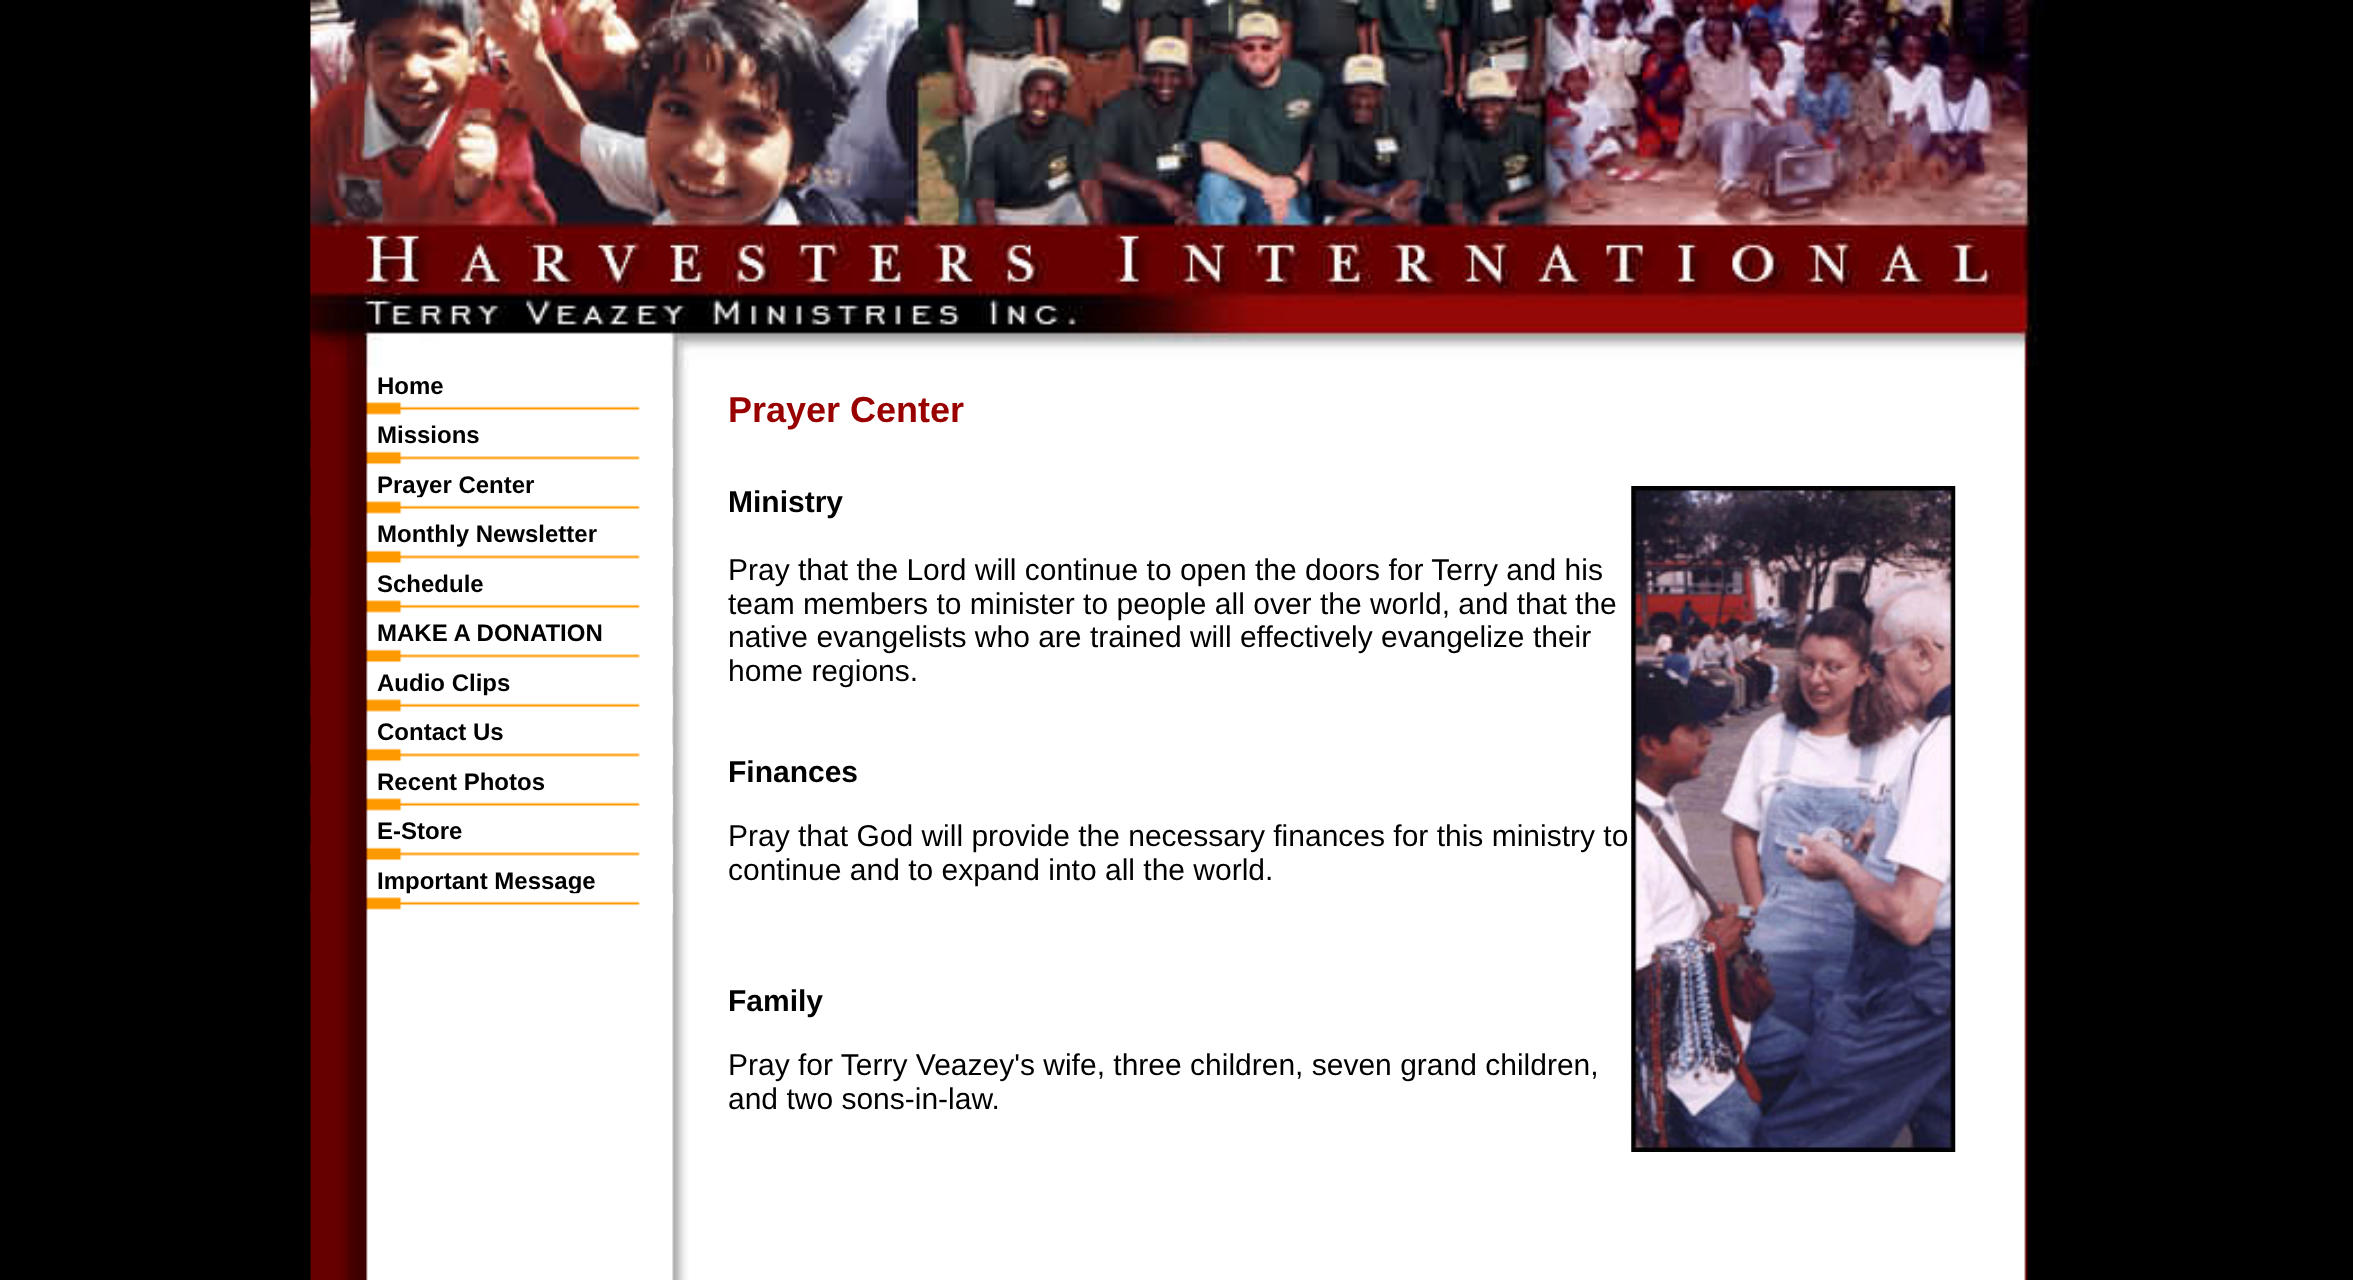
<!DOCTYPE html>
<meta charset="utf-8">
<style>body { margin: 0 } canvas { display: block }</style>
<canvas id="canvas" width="2353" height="1280"></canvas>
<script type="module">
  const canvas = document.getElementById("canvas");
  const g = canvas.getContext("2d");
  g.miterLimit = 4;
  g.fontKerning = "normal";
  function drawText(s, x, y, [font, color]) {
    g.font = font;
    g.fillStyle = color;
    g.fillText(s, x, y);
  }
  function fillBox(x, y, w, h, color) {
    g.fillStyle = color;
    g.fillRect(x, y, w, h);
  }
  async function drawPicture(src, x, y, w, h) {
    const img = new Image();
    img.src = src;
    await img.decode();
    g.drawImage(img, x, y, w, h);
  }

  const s1 = ["bold 24px Liberation Sans", "#000000"];
  const s2 = ["bold 36px Liberation Sans", "#990000"];
  const s3 = ["bold 30px Liberation Sans", "#000000"];
  const s4 = ["30px Liberation Sans", "#000000"];

  fillBox(0, 0, 2353, 1280, "#000000");
  await drawPicture("pic1.png", 310, 0, 1718, 1280);
  await drawPicture("pic2.png", 310, 0, 1735, 367);
  drawText("Home", 377, 394, s1);
  await drawPicture("pic3.png", 310, 398, 363, 21);
  drawText("Missions", 377, 443, s1);
  await drawPicture("pic4.png", 310, 447, 363, 21);
  drawText("Prayer Center", 377, 493, s1);
  await drawPicture("pic5.png", 310, 497, 363, 21);
  drawText("Monthly Newsletter", 377, 542, s1);
  await drawPicture("pic6.png", 310, 546, 363, 21);
  drawText("Schedule", 377, 592, s1);
  await drawPicture("pic3.png", 310, 596, 363, 21);
  drawText("MAKE A DONATION", 377, 641, s1);
  await drawPicture("pic4.png", 310, 645, 363, 21);
  drawText("Audio Clips", 377, 691, s1);
  await drawPicture("pic7.png", 310, 695, 363, 21);
  drawText("Contact Us", 377, 740, s1);
  await drawPicture("pic4.png", 310, 744, 363, 21);
  drawText("Recent Photos", 377, 790, s1);
  await drawPicture("pic3.png", 310, 794, 363, 21);
  drawText("E-Store", 377, 839, s1);
  await drawPicture("pic4.png", 310, 843, 363, 21);
  drawText("Important Message", 377, 889, s1);
  await drawPicture("pic8.png", 310, 893, 363, 21);
  drawText("Prayer Center", 728, 422, s2);
  drawText("Ministry", 728, 512, s3);
  await drawPicture("pic9.png", 1631, 486, 325, 666);
  drawText("Pray that the Lord will continue to open the doors for Terry and his", 728, 580, s4);
  drawText("team members to minister to people all over the world, and that the", 728, 614, s4);
  drawText("native evangelists who are trained will effectively evangelize their", 728, 647, s4);
  drawText("home regions.", 728, 681, s4);
  drawText("Finances", 728, 782, s3);
  drawText("Pray that God will provide the necessary finances for this ministry to", 728, 846, s4);
  drawText("continue and to expand into all the world.", 728, 880, s4);
  drawText("Family", 728, 1011, s3);
  drawText("Pray for Terry Veazey's wife, three children, seven grand children,", 728, 1075, s4);
  drawText("and two sons-in-law.", 728, 1109, s4);
</script>
